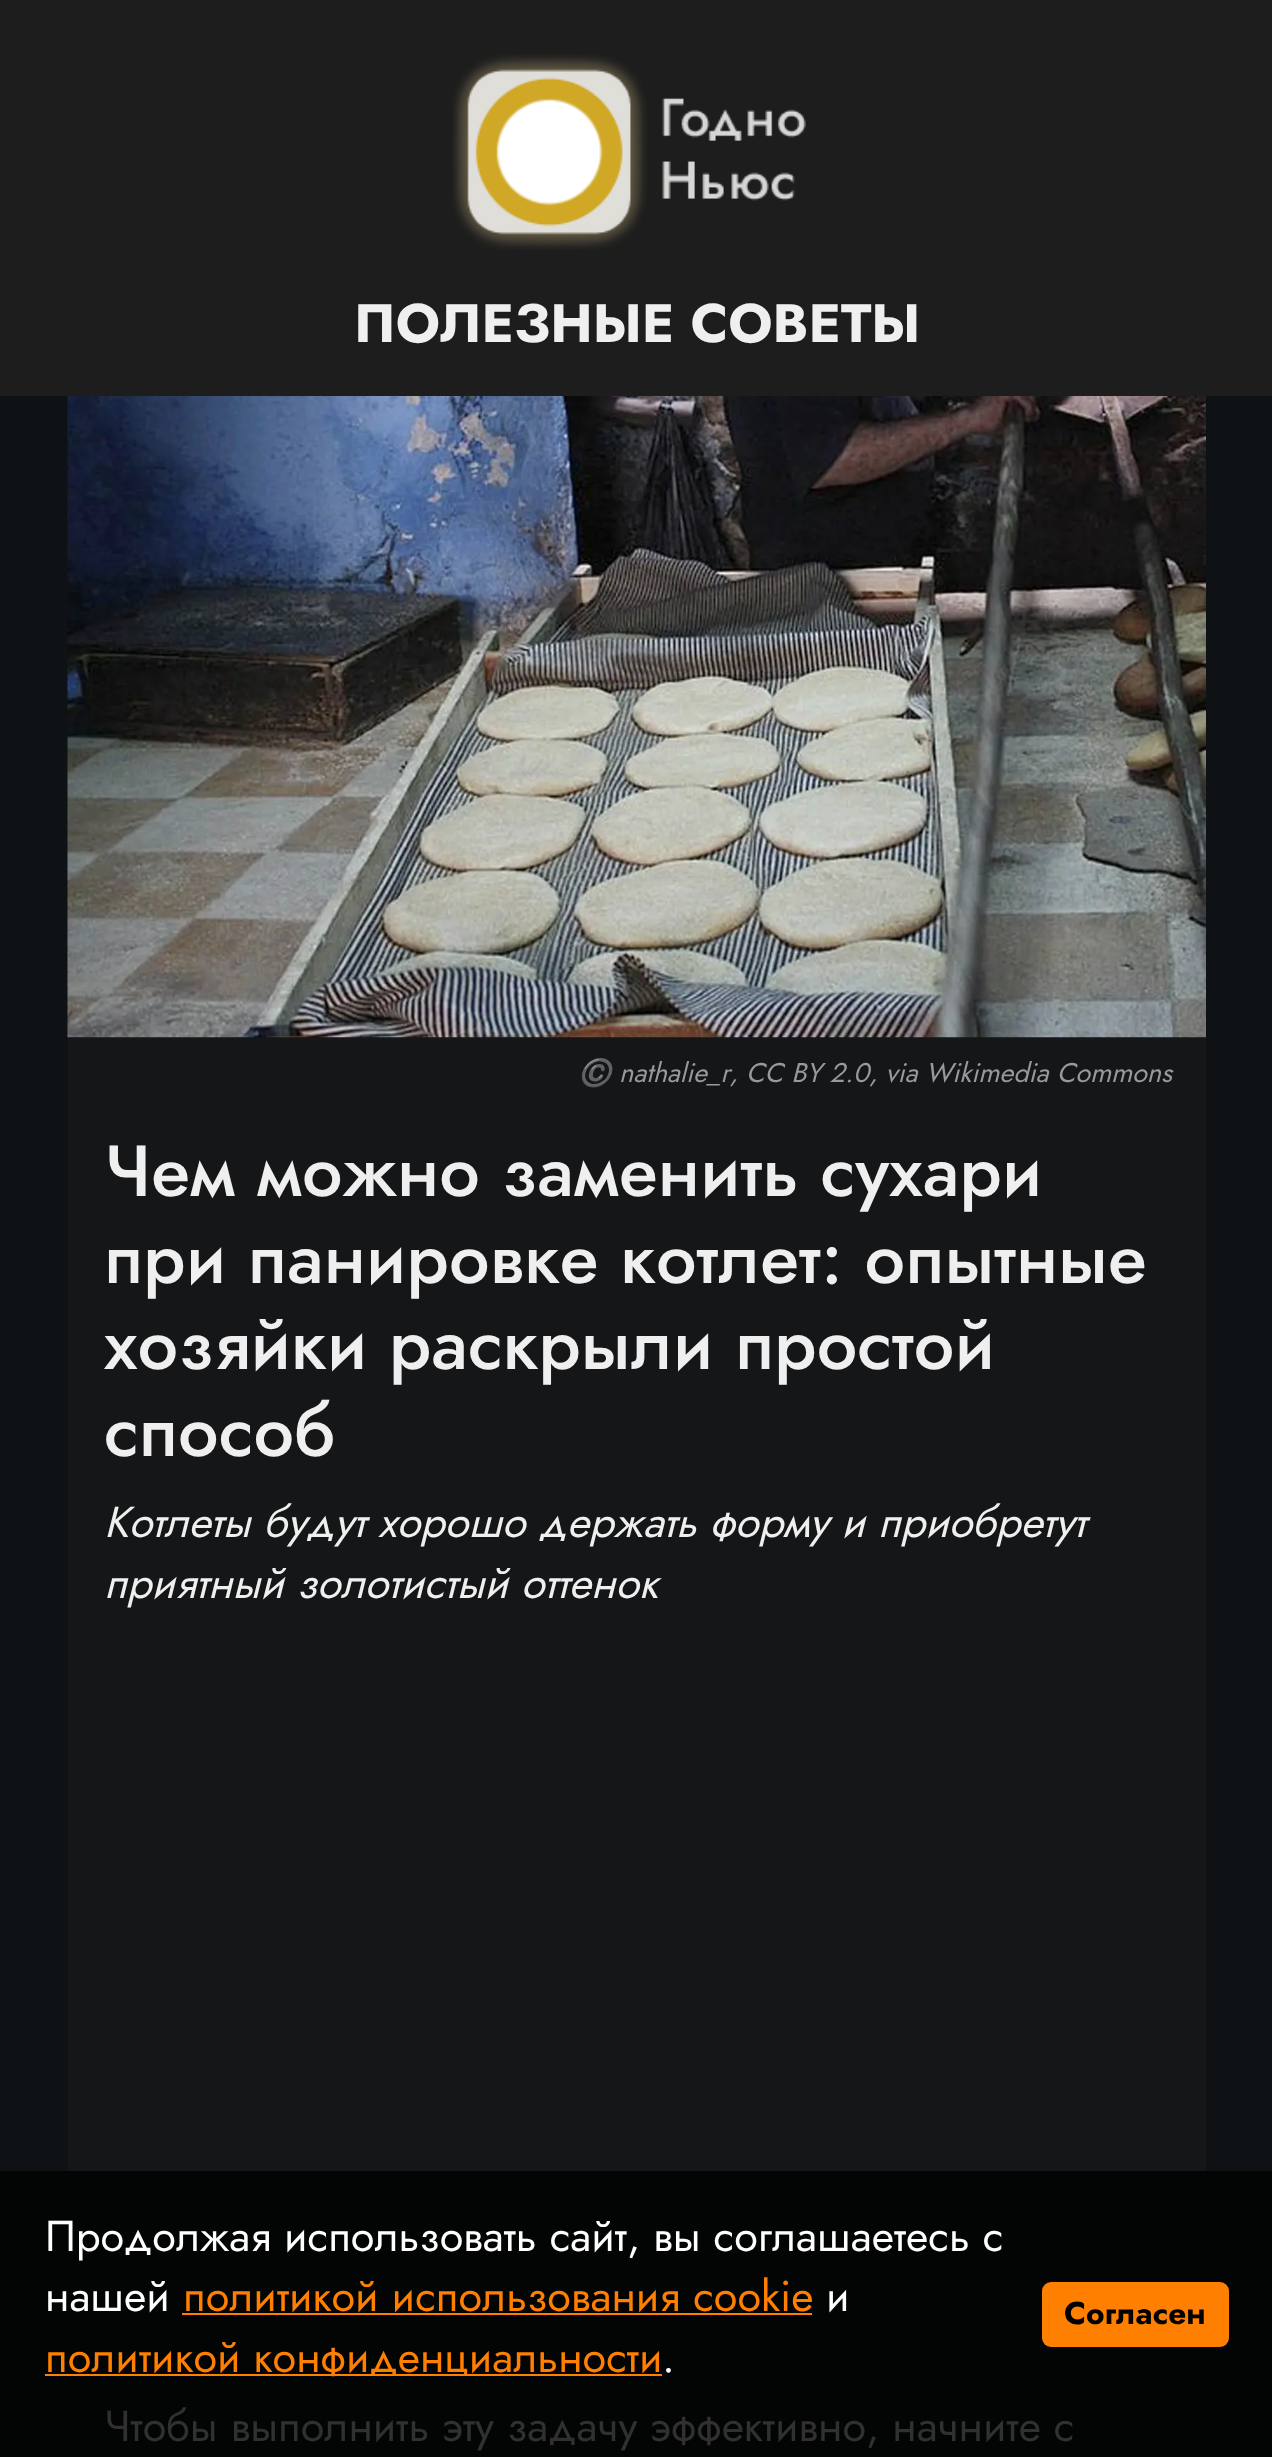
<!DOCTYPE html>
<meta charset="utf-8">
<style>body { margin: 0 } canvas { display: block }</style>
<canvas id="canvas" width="1272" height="2457"></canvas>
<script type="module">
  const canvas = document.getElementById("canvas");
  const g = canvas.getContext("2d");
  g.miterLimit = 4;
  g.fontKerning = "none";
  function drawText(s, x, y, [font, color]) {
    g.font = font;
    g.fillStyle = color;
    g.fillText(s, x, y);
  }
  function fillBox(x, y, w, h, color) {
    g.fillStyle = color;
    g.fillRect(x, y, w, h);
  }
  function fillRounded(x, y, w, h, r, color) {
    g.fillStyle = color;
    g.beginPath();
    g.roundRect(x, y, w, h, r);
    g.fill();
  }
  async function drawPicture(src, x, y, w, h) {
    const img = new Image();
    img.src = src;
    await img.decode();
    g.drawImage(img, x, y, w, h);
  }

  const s1 = ["bold 54px Jost", "#EFEFEF"];
  const s2 = ["italic 27px Noto Color Emoji", "#999999"];
  const s3 = ["italic 27px Jost", "#999999"];
  const s4 = ["500 72px Jost", "#EFEFEF"];
  const s5 = ["italic 43.2px Jost", "#EFEFEF"];
  const s6 = ["43.2px Jost", "#303030"];
  const s7 = ["43.2px Jost", "#FFFFFF"];
  const s8 = ["43.2px Jost", "#FF7F00"];
  const s9 = ["bold 31.5px Jost", "#000000"];

  fillBox(0, 0, 1272, 2457, "#0F1215");
  fillBox(0, 2171, 1272, 286, "#030404");
  fillBox(0, 0, 1272, 396, "#1D1D1D");
  await drawPicture("pic1.png", 452, 54, 354, 196);
  drawText("ПОЛЕЗНЫЕ СОВЕТЫ", 354, 342, s1);
  fillBox(68, 1037, 1138, 1134, "#151617");
  await drawPicture("pic2.png", 67, 396, 1139, 642);
  drawText("©️", 578, 1082, s2);
  drawText("nathalie_r, CC BY 2.0, via Wikimedia Commons", 619, 1082, s3);
  drawText("Чем можно заменить сухари", 104, 1196, s4);
  drawText("при панировке котлет: опытные", 104, 1283, s4);
  drawText("хозяйки раскрыли простой", 104, 1369, s4);
  drawText("способ", 104, 1456, s4);
  drawText("Котлеты будут хорошо держать форму и приобретут", 104, 1537, s5);
  drawText("приятный золотистый оттенок", 104, 1598, s5);
  drawText("Чтобы выполнить эту задачу эффективно, начните с", 104, 2441, s6);
  drawText("Продолжая использовать сайт, вы соглашаетесь с", 45, 2251, s7);
  drawText("нашей", 45, 2311, s7);
  drawText("политикой использования cookie", 183, 2311, s8);
  fillBox(182, 2313, 630, 2, "#FF7F00");
  drawText("и", 826, 2311, s7);
  fillBox(45, 2374, 617, 2, "#FF7F00");
  drawText("политикой конфиденциальности", 45, 2372, s8);
  drawText(".", 662, 2372, s7);
  fillRounded(1042, 2282, 187, 65, 9, "#FF7F00");
  drawText("Согласен", 1064, 2324, s9);
</script>
